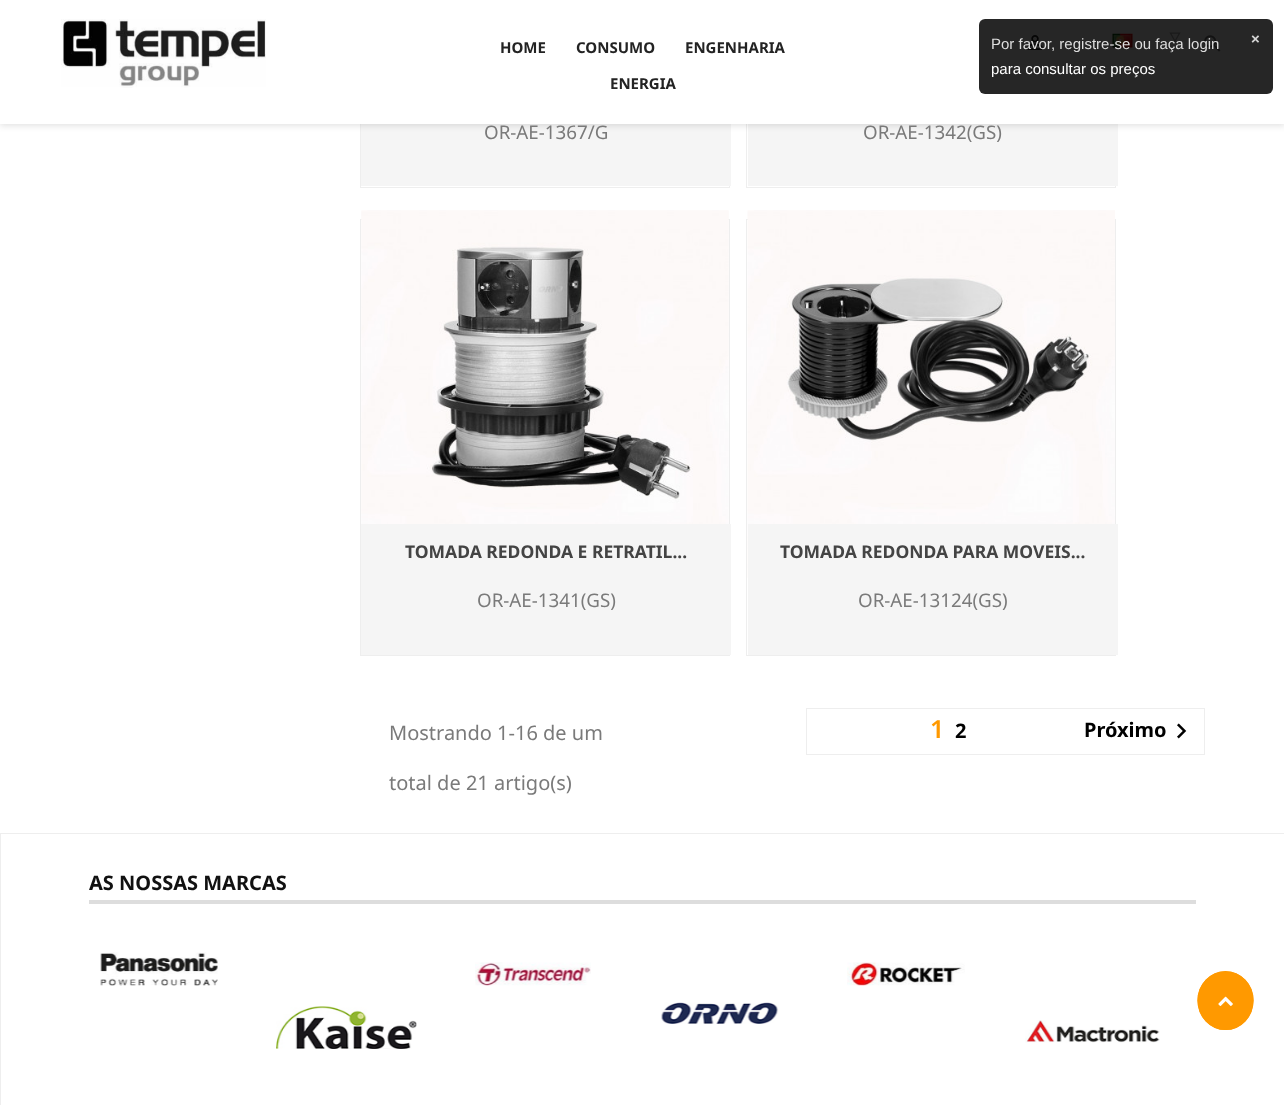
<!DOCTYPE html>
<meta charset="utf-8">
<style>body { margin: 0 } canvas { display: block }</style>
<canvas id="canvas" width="1284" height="1105"></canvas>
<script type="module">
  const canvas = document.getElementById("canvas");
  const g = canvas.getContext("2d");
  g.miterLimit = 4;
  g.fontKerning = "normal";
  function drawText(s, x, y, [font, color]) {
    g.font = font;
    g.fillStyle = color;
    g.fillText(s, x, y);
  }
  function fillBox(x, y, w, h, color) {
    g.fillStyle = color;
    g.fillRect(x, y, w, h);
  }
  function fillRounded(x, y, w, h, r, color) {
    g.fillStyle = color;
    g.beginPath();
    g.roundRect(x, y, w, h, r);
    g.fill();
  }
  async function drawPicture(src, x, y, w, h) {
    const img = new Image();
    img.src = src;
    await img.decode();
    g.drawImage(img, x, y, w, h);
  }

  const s1 = ["15px Liberation Sans", "#DEDEDE"];
  const s2 = ["15px Liberation Sans", "#FFFFFF"];
  const s3 = ["bold 15px Liberation Sans", "#D4D4D4"];
  const s4 = ["bold 15px Noto Sans", "#232323"];
  const s5 = ["18.75px Noto Sans", "#7A7A7A"];
  const s6 = ["bold 17.5px Noto Sans", "#444444"];
  const s7 = ["20px Noto Sans", "#7A7A7A"];
  const s8 = ["600 25px Noto Sans", "#FF9900"];
  const s9 = ["bold 20px Noto Sans", "#000000"];
  const s10 = ["bold 20px Noto Sans", "#111111"];

  fillBox(0, 0, 1284, 1105, "#FFFFFF");
  g.strokeStyle = "#EEEEEE";
  g.strokeRect(360.5, -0.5, 369, 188);
  fillBox(361, 124, 370, 62, "#F5F5F5");
  g.strokeRect(746.5, -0.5, 369, 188);
  fillBox(748, 124, 370, 62, "#F5F5F5");
  g.fillStyle = "rgba(0, 0, 0, 0.11)";
  g.filter = "blur(3px)";
  g.beginPath();
  g.rect(0, 3, 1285, 123);
  g.fill();
  g.filter = "none";
  fillBox(0, 0, 1284, 124, "#FFFFFF");
  await drawPicture("pic2.png", 1027, 35, 16, 15);
  await drawPicture("pic3.png", 1112, 33, 21, 15);
  await drawPicture("pic4.png", 1169, 32, 12, 11);
  await drawPicture("pic5.png", 1204, 35, 17, 17);
  fillRounded(979, 19, 294, 75, 6, "rgba(0, 0, 0, 0.85)");
  drawText("Por favor, registre-se ou faça login", 991, 49, s1);
  drawText("para consultar os preços", 991, 74, s2);
  drawText("×", 1251, 44, s3);
  await drawPicture("pic1.png", 61, 19, 205, 69);
  drawText("HOME", 500, 53, s4);
  drawText("CONSUMO", 576, 53, s4);
  drawText("ENGENHARIA", 685, 53, s4);
  drawText("ENERGIA", 610, 89, s4);
  drawText("OR-AE-1367/G", 484, 139, s5);
  drawText("OR-AE-1342(GS)", 863, 139, s5);
  g.strokeRect(360.5, 219.5, 369, 436);
  await drawPicture("pic6.png", 361, 210, 368, 314);
  fillBox(361, 524, 370, 131, "#F5F5F5");
  drawText("TOMADA REDONDA E RETRATIL...", 405, 558, s6);
  drawText("OR-AE-1341(GS)", 477, 607, s5);
  g.strokeRect(746.5, 219.5, 369, 436);
  await drawPicture("pic7.png", 747, 210, 368, 368);
  fillBox(748, 524, 370, 131, "#F5F5F5");
  drawText("TOMADA REDONDA PARA MOVEIS...", 780, 558, s6);
  drawText("OR-AE-13124(GS)", 858, 607, s5);
  drawText("Mostrando 1-16 de um", 389, 740, s7);
  drawText("total de 21 artigo(s)", 389, 790, s7);
  g.strokeRect(806.5, 708.5, 398, 46);
  g.letterSpacing = "2px";
  drawText("1", 930, 738, s8);
  drawText("2", 955, 738, s9);
  g.letterSpacing = "0px";
  drawText("Próximo", 1084, 737, s9);
  await drawPicture("pic8.png", 1177, 723, 10, 16);
  g.strokeRect(0.5, 833.5, 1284, 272);
  fillBox(89, 900, 1107, 4, "#DDDDDD");
  drawText("AS NOSSAS MARCAS", 89, 890, s10);
  await drawPicture("pic9.png", 100, 952, 118, 34);
  await drawPicture("pic10.png", 475, 962, 116, 24);
  await drawPicture("pic11.png", 847, 962, 118, 24);
  await drawPicture("pic12.png", 276, 1006, 141, 43);
  await drawPicture("pic13.png", 661, 1002, 118, 22);
  await drawPicture("pic14.png", 1025, 1020, 135, 23);
  g.fillStyle = "#FF9900";
  g.beginPath();
  g.ellipse(1225.5, 1000.5, 28, 29.5, 0, 0, Math.PI * 2);
  g.fill();
  g.beginPath();
  g.moveTo(1225.5, 972);
  g.bezierCurveTo(1241, 972, 1253, 984.5, 1253, 1000.5);
  g.bezierCurveTo(1253, 1016.5, 1241, 1029.5, 1225.5, 1029.5);
  g.bezierCurveTo(1210.5, 1029.5, 1198, 1016.5, 1198, 1000.5);
  g.bezierCurveTo(1198, 984.5, 1210.5, 972, 1225.5, 972);
  g.closePath();
  g.strokeStyle = "#FF9900";
  g.lineWidth = 1.2;
  g.stroke();
  await drawPicture("pic15.png", 1218, 996, 15, 10);
</script>
